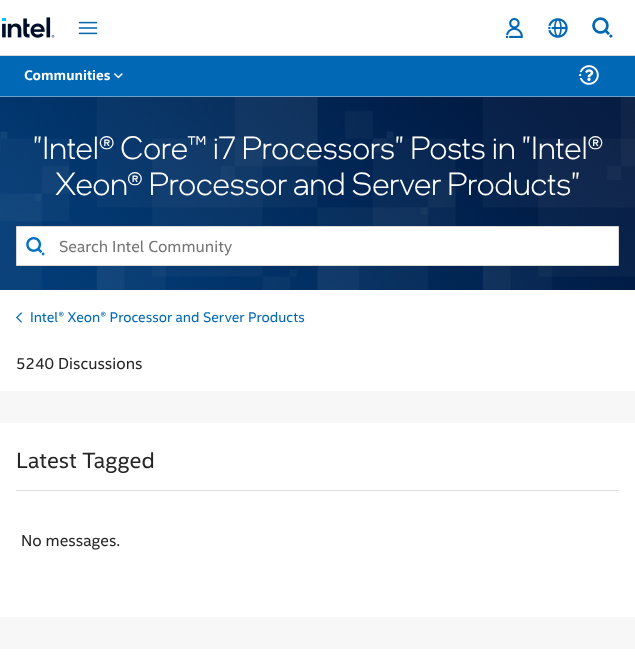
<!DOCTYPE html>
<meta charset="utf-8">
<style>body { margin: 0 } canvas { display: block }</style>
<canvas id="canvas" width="635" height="667"></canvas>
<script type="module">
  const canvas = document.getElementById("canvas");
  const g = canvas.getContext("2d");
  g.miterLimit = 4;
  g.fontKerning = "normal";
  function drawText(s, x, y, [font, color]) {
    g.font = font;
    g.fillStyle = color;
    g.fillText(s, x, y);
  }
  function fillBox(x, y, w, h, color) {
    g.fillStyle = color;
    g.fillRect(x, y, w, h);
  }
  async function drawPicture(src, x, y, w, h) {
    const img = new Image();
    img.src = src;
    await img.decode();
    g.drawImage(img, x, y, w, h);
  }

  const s1 = ["bold 14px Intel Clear", "#FFFFFF"];
  const s2 = ["300 32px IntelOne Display", "#FFFFFF"];
  const s3 = ["16px Intel Clear", "#757575"];
  const s4 = ["14px Intel Clear", "#0068B5"];
  const s5 = ["16px Intel Clear", "#262626"];
  const s6 = ["22px Intel Clear", "#262626"];

  fillBox(0, 0, 635, 667, "#F7F7F7");
  fillBox(0, 0, 635, 55, "#FFFFFF");
  fillBox(0, 55, 635, 1, "#D7D7D7");
  await drawPicture("pic1.png", 2, 17, 53, 21);
  await drawPicture("pic2.png", 78, 21, 20, 14);
  await drawPicture("pic3.png", 506, 18, 17, 20);
  await drawPicture("pic4.png", 548, 18, 20, 20);
  await drawPicture("pic5.png", 592, 17, 21, 21);
  fillBox(0, 290, 635, 101, "#FFFFFF");
  fillBox(0, 56, 635, 40, "#0068B5");
  drawText("Communities", 24, 80, s1);
  await drawPicture("pic6.png", 114, 73, 9, 6);
  await drawPicture("pic7.png", 579, 65, 20, 20);
  await drawPicture("pic8.png", 0, 97, 635, 193);
  fillBox(0, 96, 635, 1, "#6CA0C6");
  drawText("\"Intel® Core™ i7 Processors\" Posts in \"Intel®", 33, 159, s2);
  drawText("Xeon® Processor and Server Products\"", 55, 195, s2);
  g.beginPath();
  g.rect(16.5, 226.5, 602, 39);
  g.fill();
  g.strokeStyle = "#D7D7D7";
  g.stroke();
  await drawPicture("pic9.png", 26, 237, 19, 19);
  drawText("Search Intel Community", 59, 252, s3);
  await drawPicture("pic10.png", 16, 312, 6, 11);
  drawText("Intel® Xeon® Processor and Server Products", 30, 322, s4);
  drawText("5240 Discussions", 16, 369, s5);
  fillBox(0, 423, 635, 194, "#FFFFFF");
  fillBox(16, 490, 603, 1, "#E0E0E0");
  drawText("Latest Tagged", 16, 468, s6);
  drawText("No messages.", 21, 546, s5);
  fillBox(0, 649, 635, 18, "#FFFFFF");
</script>
